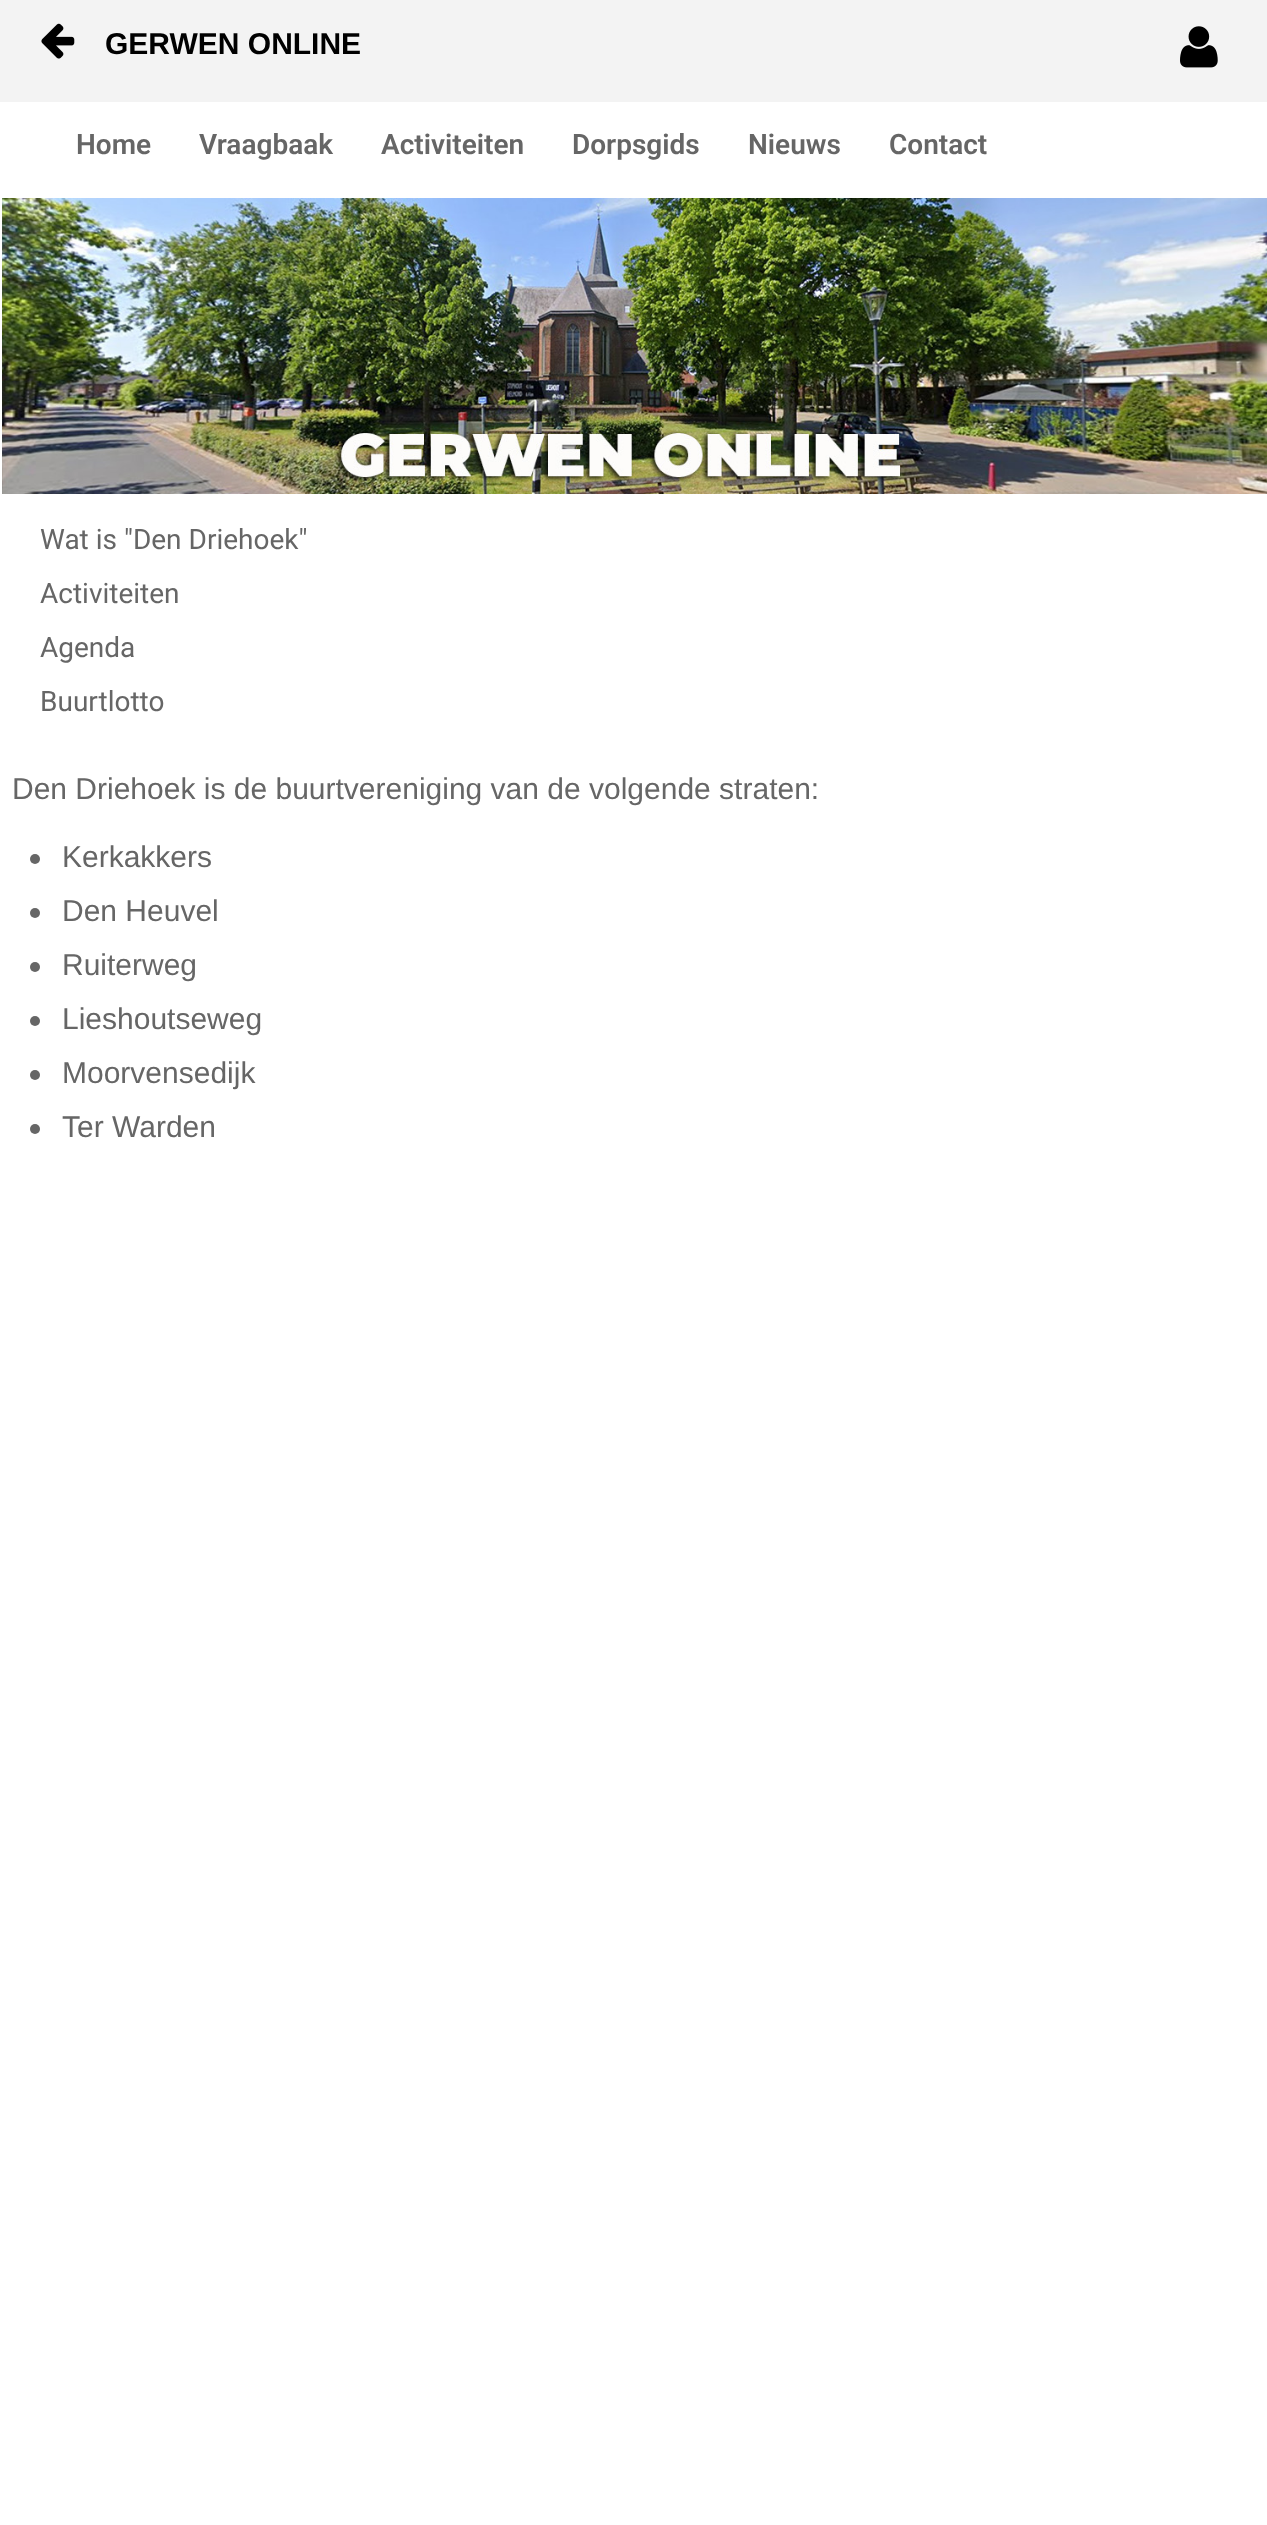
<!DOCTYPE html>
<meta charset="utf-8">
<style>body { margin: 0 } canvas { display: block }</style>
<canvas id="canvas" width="1267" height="2525"></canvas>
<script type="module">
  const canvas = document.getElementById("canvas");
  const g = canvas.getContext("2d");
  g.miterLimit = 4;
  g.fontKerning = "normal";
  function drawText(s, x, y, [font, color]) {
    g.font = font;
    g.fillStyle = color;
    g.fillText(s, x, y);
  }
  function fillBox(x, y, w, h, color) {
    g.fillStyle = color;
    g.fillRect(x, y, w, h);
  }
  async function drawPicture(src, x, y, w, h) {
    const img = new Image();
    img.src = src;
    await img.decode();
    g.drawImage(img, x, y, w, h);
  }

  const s1 = ["bold 30px Liberation Sans", "#000000"];
  const s2 = ["600 28px Roboto", "#666666"];
  const s3 = ["28px Roboto", "#666666"];
  const s4 = ["30px Liberation Sans", "#666666"];

  fillBox(0, 0, 1267, 2525, "#FFFFFF");
  fillBox(0, 0, 1267, 102, "#F3F3F3");
  await drawPicture("pic1.png", 41, 23, 34, 36);
  drawText("GERWEN ONLINE", 105, 54, s1);
  await drawPicture("pic2.png", 1180, 26, 38, 42);
  drawText("Home", 76, 154, s2);
  drawText("Vraagbaak", 199, 154, s2);
  drawText("Activiteiten", 381, 154, s2);
  drawText("Dorpsgids", 572, 154, s2);
  drawText("Nieuws", 748, 154, s2);
  drawText("Contact", 889, 154, s2);
  await drawPicture("pic3.png", 2, 198, 1265, 296);
  drawText("Wat is \"Den Driehoek\"", 40, 549, s3);
  drawText("Activiteiten", 40, 603, s3);
  drawText("Agenda", 40, 657, s3);
  drawText("Buurtlotto", 40, 711, s3);
  drawText("Den Driehoek is de buurtvereniging van de volgende straten:", 12, 799, s4);
  g.beginPath();
  g.arc(35, 859, 5, 0, Math.PI * 2);
  g.fill();
  drawText("Kerkakkers", 62, 867, s4);
  g.beginPath();
  g.arc(35, 913, 5, 0, Math.PI * 2);
  g.fill();
  drawText("Den Heuvel", 62, 921, s4);
  g.beginPath();
  g.arc(35, 967, 5, 0, Math.PI * 2);
  g.fill();
  drawText("Ruiterweg", 62, 975, s4);
  g.beginPath();
  g.arc(35, 1021, 5, 0, Math.PI * 2);
  g.fill();
  drawText("Lieshoutseweg", 62, 1029, s4);
  g.beginPath();
  g.arc(35, 1075, 5, 0, Math.PI * 2);
  g.fill();
  drawText("Moorvensedijk", 62, 1083, s4);
  g.beginPath();
  g.arc(35, 1129, 5, 0, Math.PI * 2);
  g.fill();
  drawText("Ter Warden", 62, 1137, s4);
</script>
